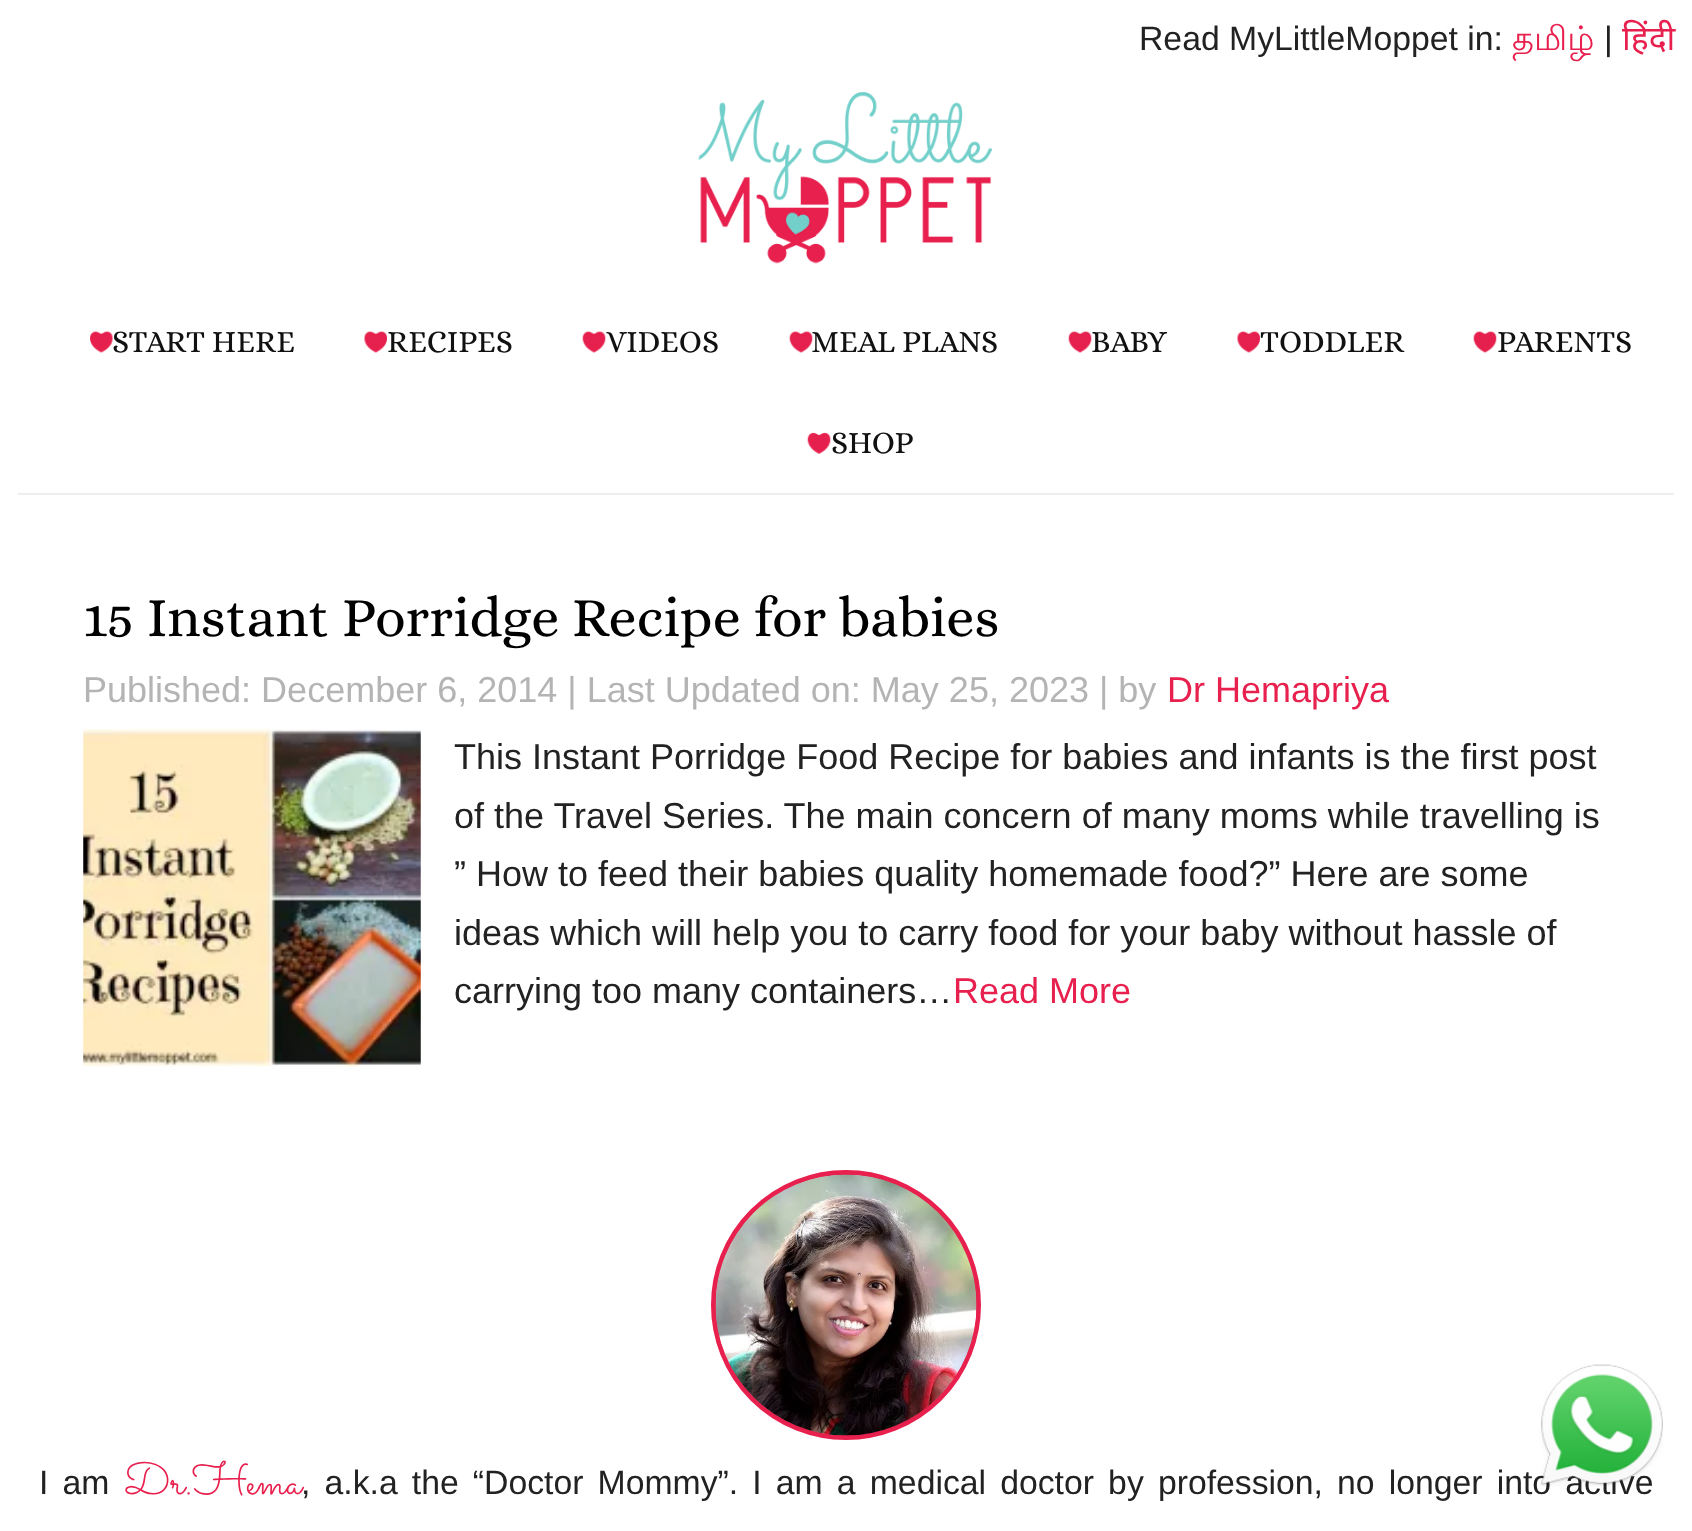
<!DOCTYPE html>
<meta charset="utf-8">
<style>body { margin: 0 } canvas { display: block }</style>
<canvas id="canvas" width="1692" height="1531"></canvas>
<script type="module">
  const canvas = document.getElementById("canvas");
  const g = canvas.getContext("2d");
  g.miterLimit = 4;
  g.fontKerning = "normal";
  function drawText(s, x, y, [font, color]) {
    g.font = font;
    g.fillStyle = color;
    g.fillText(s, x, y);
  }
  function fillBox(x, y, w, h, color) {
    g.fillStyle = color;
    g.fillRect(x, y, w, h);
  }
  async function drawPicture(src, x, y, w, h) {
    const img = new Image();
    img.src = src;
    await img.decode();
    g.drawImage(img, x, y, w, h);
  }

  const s1 = ["33.75px Liberation Sans", "#222222"];
  const s2 = ["33.75px Lohit Tamil", "#E7204E"];
  const s3 = ["33.75px Noto Sans", "#E7204E"];
  const s4 = ["31.5px Alice", "#111111"];
  const s5 = ["56.25px Alice", "#000000"];
  const s6 = ["36px Liberation Sans", "#B4B4B4"];
  const s7 = ["36px Liberation Sans", "#E7204E"];
  const s8 = ["36px Liberation Sans", "#222222"];
  const s9 = ["45px Sacramento", "#E7204E"];

  fillBox(0, 0, 1692, 1531, "#FFFFFF");
  drawText("Read MyLittleMoppet in:", 1139, 50, s1);
  drawText("தமிழ்", 1512, 50, s2);
  drawText("|", 1604, 50, s1);
  drawText("हिंदी", 1622, 50, s3);
  await drawPicture("pic1.png", 698, 91, 294, 173);
  await drawPicture("pic2.png", 90, 330, 23, 23);
  drawText("START HERE", 112, 352, s4);
  await drawPicture("pic3.png", 364, 330, 23, 23);
  drawText("RECIPES", 387, 352, s4);
  await drawPicture("pic4.png", 582, 331, 24, 22);
  drawText("VIDEOS", 606, 352, s4);
  await drawPicture("pic5.png", 789, 331, 24, 22);
  drawText("MEAL PLANS", 811, 352, s4);
  await drawPicture("pic5.png", 1068, 331, 24, 22);
  drawText("BABY", 1091, 352, s4);
  await drawPicture("pic3.png", 1237, 330, 23, 23);
  drawText("TODDLER", 1260, 352, s4);
  await drawPicture("pic4.png", 1473, 331, 24, 22);
  drawText("PARENTS", 1497, 352, s4);
  await drawPicture("pic6.png", 807, 432, 24, 22);
  drawText("SHOP", 831, 453, s4);
  fillBox(18, 493, 1656, 2, "#EEEEEE");
  drawText("15 Instant Porridge Recipe for babies", 83, 636, s5);
  drawText("Published: December 6, 2014 | Last Updated on: May 25, 2023 | by", 83, 702, s6);
  drawText("Dr Hemapriya", 1167, 702, s7);
  await drawPicture("pic7.png", 83, 729, 338, 338);
  drawText("This Instant Porridge Food Recipe for babies and infants is the first post", 454, 769, s8);
  drawText("of the Travel Series. The main concern of many moms while travelling is", 454, 828, s8);
  drawText("” How to feed their babies quality homemade food?” Here are some", 454, 886, s8);
  drawText("ideas which will help you to carry food for your baby without hassle of", 454, 945, s8);
  drawText("carrying too many containers…", 454, 1003, s8);
  drawText("Read More", 953, 1003, s7);
  g.beginPath();
  g.arc(846, 1305, 132.5, 0, Math.PI * 2);
  g.strokeStyle = "#E7204E";
  g.lineWidth = 5;
  g.stroke();
  await drawPicture("pic8.png", 715, 1174, 262, 262);
  g.wordSpacing = "4.75px";
  drawText("I am", 39, 1494, s1);
  g.wordSpacing = "0px";
  drawText("Dr.Hema", 124, 1494, s9);
  g.wordSpacing = "4.75px";
  drawText(", a.k.a the “Doctor Mommy”. I am a medical doctor by profession, no longer into active", 301, 1494, s1);
  await drawPicture("pic9.png", 1540, 1364, 123, 123);
</script>
